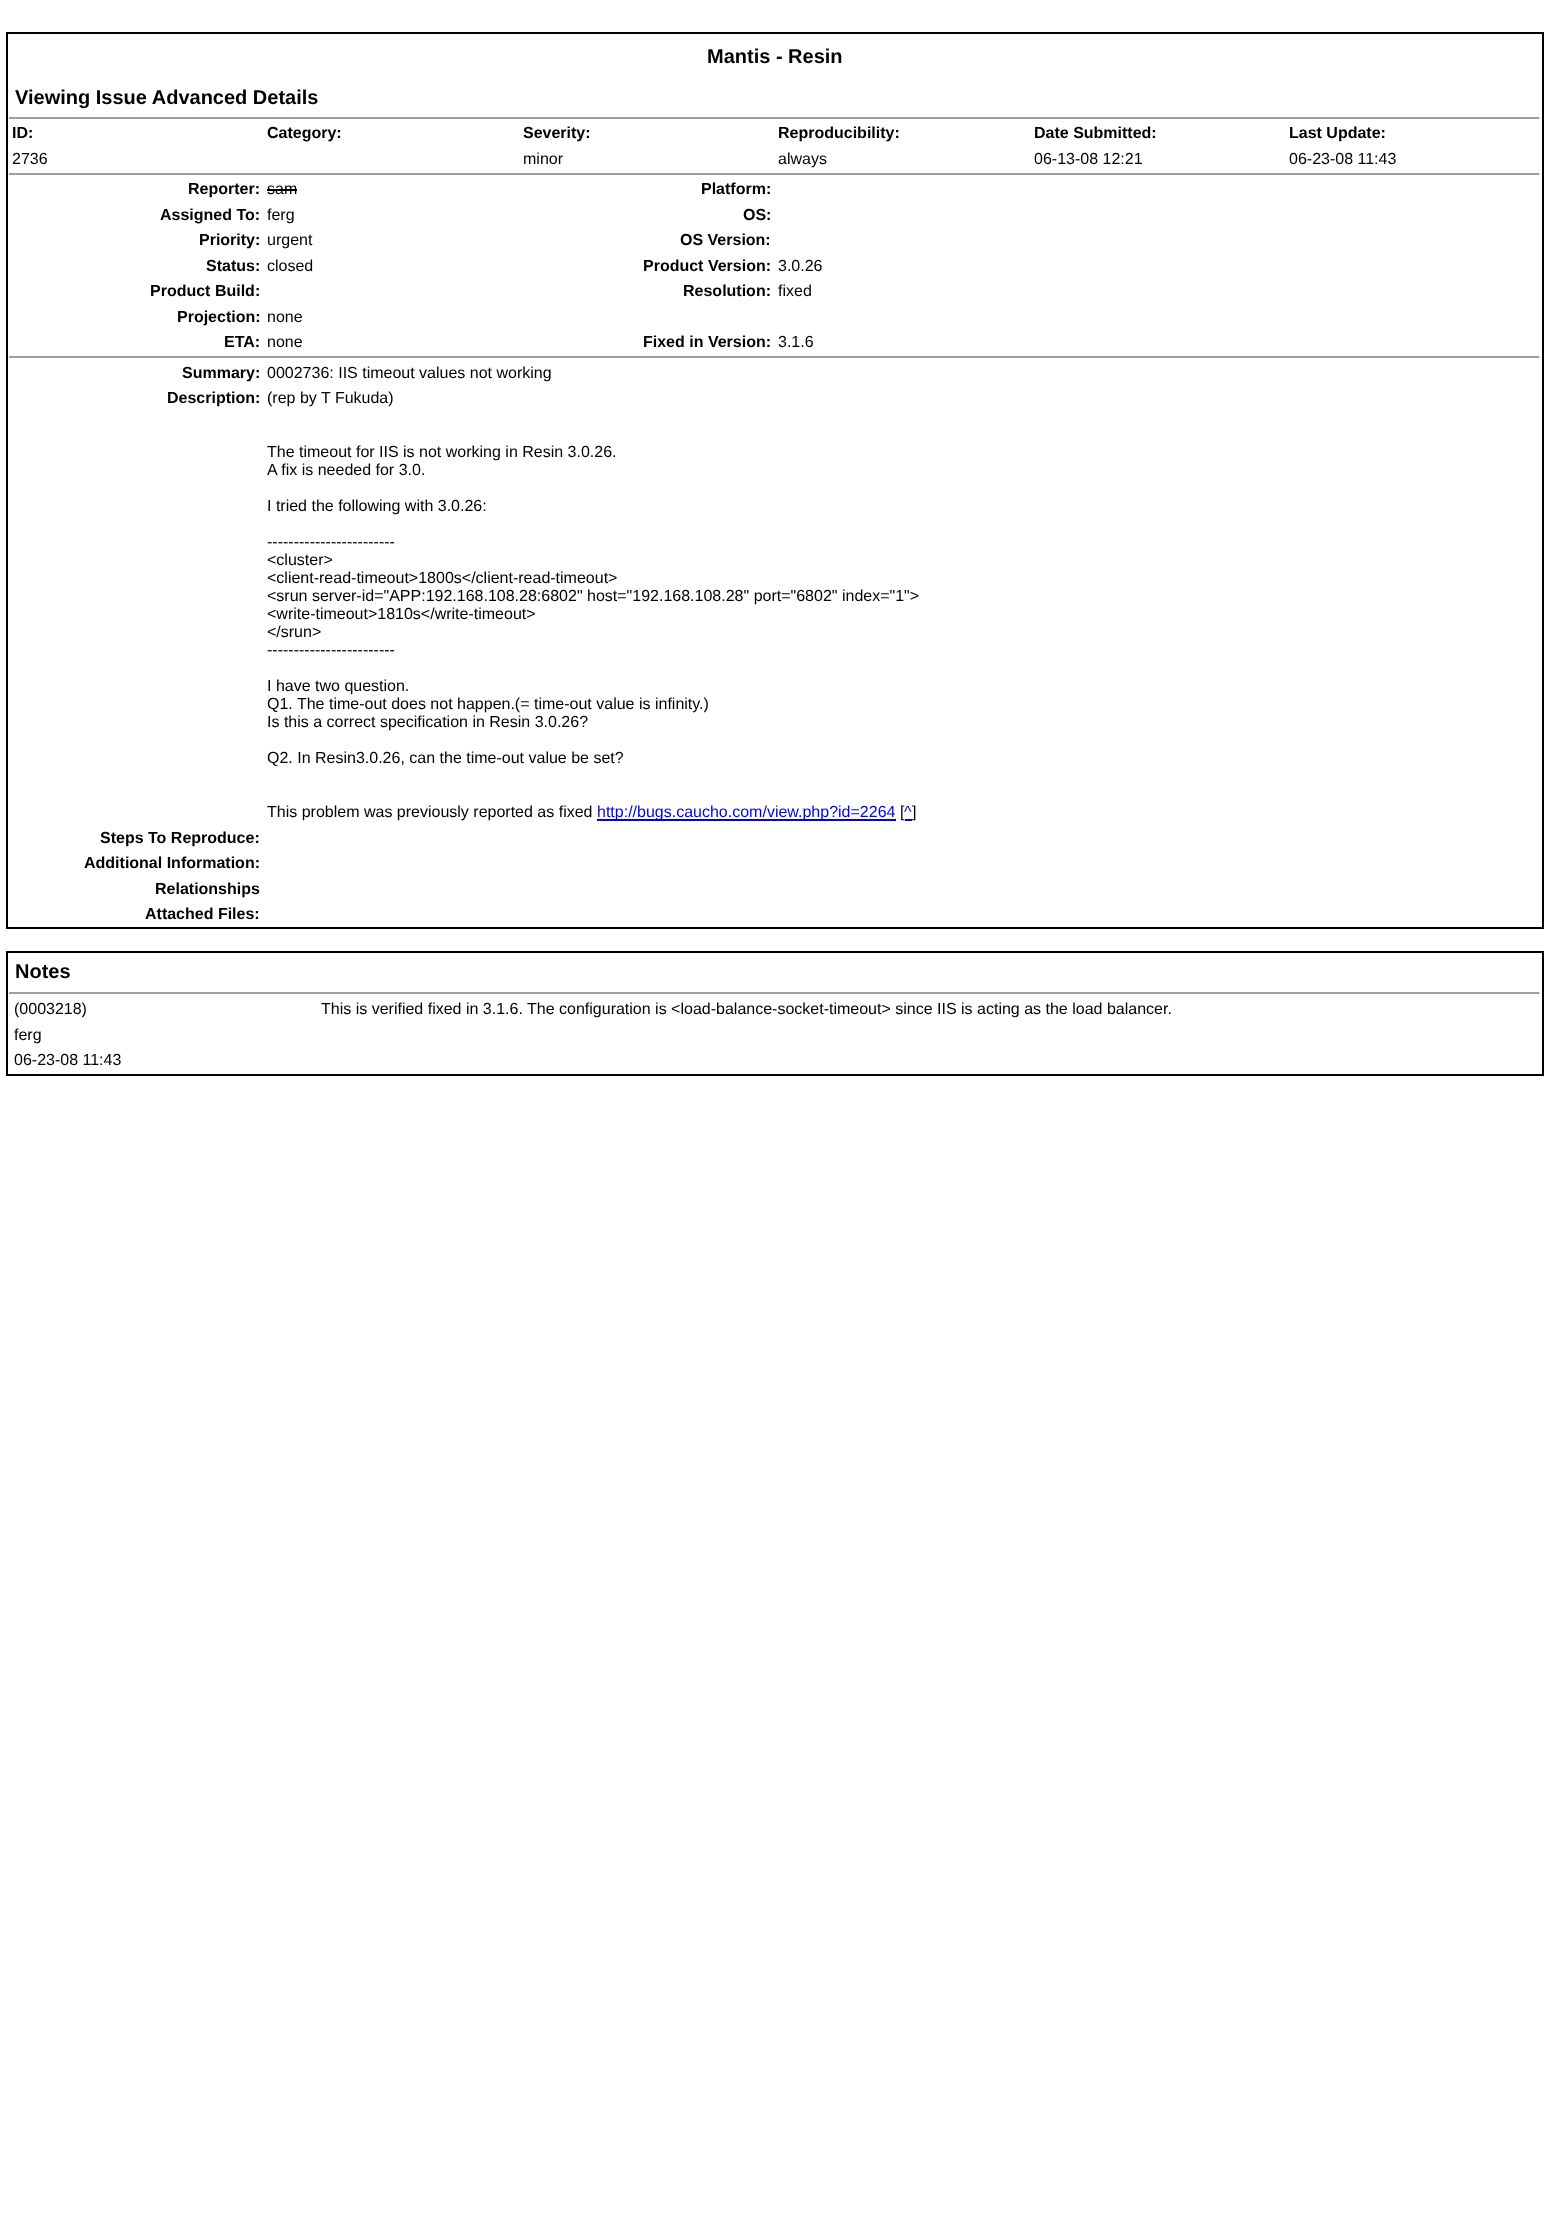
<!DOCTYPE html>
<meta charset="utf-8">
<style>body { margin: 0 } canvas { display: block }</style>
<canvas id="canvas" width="1549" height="2233"></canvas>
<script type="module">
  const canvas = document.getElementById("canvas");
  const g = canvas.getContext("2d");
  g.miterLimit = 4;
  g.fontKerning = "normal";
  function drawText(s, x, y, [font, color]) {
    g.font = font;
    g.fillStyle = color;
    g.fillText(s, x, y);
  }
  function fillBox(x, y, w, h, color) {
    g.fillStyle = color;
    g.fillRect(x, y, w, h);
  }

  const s1 = ["bold 20px Liberation Sans", "#000000"];
  const s2 = ["bold 16px Liberation Sans", "#000000"];
  const s3 = ["16px Liberation Sans", "#000000"];
  const s4 = ["16px Liberation Sans", "#0000EE"];

  fillBox(0, 0, 1549, 2233, "#FFFFFF");
  g.strokeStyle = "#000000";
  g.lineWidth = 2;
  g.strokeRect(7, 33, 1536, 895);
  drawText("Mantis - Resin", 707, 63, s1);
  drawText("Viewing Issue Advanced Details", 15, 104, s1);
  fillBox(9, 117, 1532, 2, "#9F9F9F");
  fillBox(1539, 117, 2, 2, "#EEEEEE");
  drawText("ID:", 12, 138, s2);
  drawText("Category:", 267, 138, s2);
  drawText("Severity:", 523, 138, s2);
  drawText("Reproducibility:", 778, 138, s2);
  drawText("Date Submitted:", 1034, 138, s2);
  drawText("Last Update:", 1289, 138, s2);
  drawText("2736", 12, 164, s3);
  drawText("minor", 523, 164, s3);
  drawText("always", 778, 164, s3);
  drawText("06-13-08 12:21", 1034, 164, s3);
  drawText("06-23-08 11:43", 1289, 164, s3);
  fillBox(9, 173, 1532, 2, "#9F9F9F");
  fillBox(1539, 173, 2, 2, "#EEEEEE");
  drawText("Reporter:", 188, 194, s2);
  drawText("sam", 267, 194, s3);
  fillBox(267, 189, 30, 2, "#000000");
  drawText("Platform:", 701, 194, s2);
  drawText("Assigned To:", 160, 220, s2);
  drawText("ferg", 267, 220, s3);
  drawText("OS:", 743, 220, s2);
  drawText("Priority:", 199, 245, s2);
  drawText("urgent", 267, 245, s3);
  drawText("OS Version:", 680, 245, s2);
  drawText("Status:", 206, 271, s2);
  drawText("closed", 267, 271, s3);
  drawText("Product Version:", 643, 271, s2);
  drawText("3.0.26", 778, 271, s3);
  drawText("Product Build:", 150, 296, s2);
  drawText("Resolution:", 683, 296, s2);
  drawText("fixed", 778, 296, s3);
  drawText("Projection:", 177, 322, s2);
  drawText("none", 267, 322, s3);
  drawText("ETA:", 224, 347, s2);
  drawText("none", 267, 347, s3);
  drawText("Fixed in Version:", 643, 347, s2);
  drawText("3.1.6", 778, 347, s3);
  fillBox(9, 356, 1532, 2, "#9F9F9F");
  fillBox(1539, 356, 2, 2, "#EEEEEE");
  drawText("Summary:", 182, 378, s2);
  drawText("0002736: IIS timeout values not working", 267, 378, s3);
  drawText("Description:", 167, 403, s2);
  drawText("(rep by T Fukuda)", 267, 403, s3);
  drawText("The timeout for IIS is not working in Resin 3.0.26.", 267, 457, s3);
  drawText("A fix is needed for 3.0.", 267, 475, s3);
  drawText("I tried the following with 3.0.26:", 267, 511, s3);
  drawText("------------------------", 267, 547, s3);
  drawText("<cluster>", 267, 565, s3);
  drawText("<client-read-timeout>1800s<\/client-read-timeout>", 267, 583, s3);
  drawText("<srun server-id=\"APP:192.168.108.28:6802\" host=\"192.168.108.28\" port=\"6802\" index=\"1\">", 267, 601, s3);
  drawText("<write-timeout>1810s<\/write-timeout>", 267, 619, s3);
  drawText("<\/srun>", 267, 637, s3);
  drawText("------------------------", 267, 655, s3);
  drawText("I have two question.", 267, 691, s3);
  drawText("Q1. The time-out does not happen.(= time-out value is infinity.)", 267, 709, s3);
  drawText("Is this a correct specification in Resin 3.0.26?", 267, 727, s3);
  drawText("Q2. In Resin3.0.26, can the time-out value be set?", 267, 763, s3);
  drawText("This problem was previously reported as fixed", 267, 817, s3);
  fillBox(597, 819, 299, 2, "#0000EE");
  drawText("http://bugs.caucho.com/view.php?id=2264", 597, 817, s4);
  drawText("[", 900, 817, s3);
  drawText("^", 904, 817, s4);
  fillBox(905, 819, 7, 2, "#0000EE");
  drawText("]", 912, 817, s3);
  drawText("Steps To Reproduce:", 100, 843, s2);
  drawText("Additional Information:", 84, 868, s2);
  drawText("Relationships", 155, 894, s2);
  drawText("Attached Files:", 145, 919, s2);
  g.strokeRect(7, 952, 1536, 123);
  drawText("Notes", 15, 978, s1);
  fillBox(9, 992, 1532, 2, "#9F9F9F");
  fillBox(1539, 992, 2, 2, "#EEEEEE");
  drawText("(0003218)", 14, 1014, s3);
  drawText("ferg", 14, 1040, s3);
  drawText("06-23-08 11:43", 14, 1065, s3);
  drawText("This is verified fixed in 3.1.6. The configuration is <load-balance-socket-timeout> since IIS is acting as the load balancer.", 321, 1014, s3);
</script>
